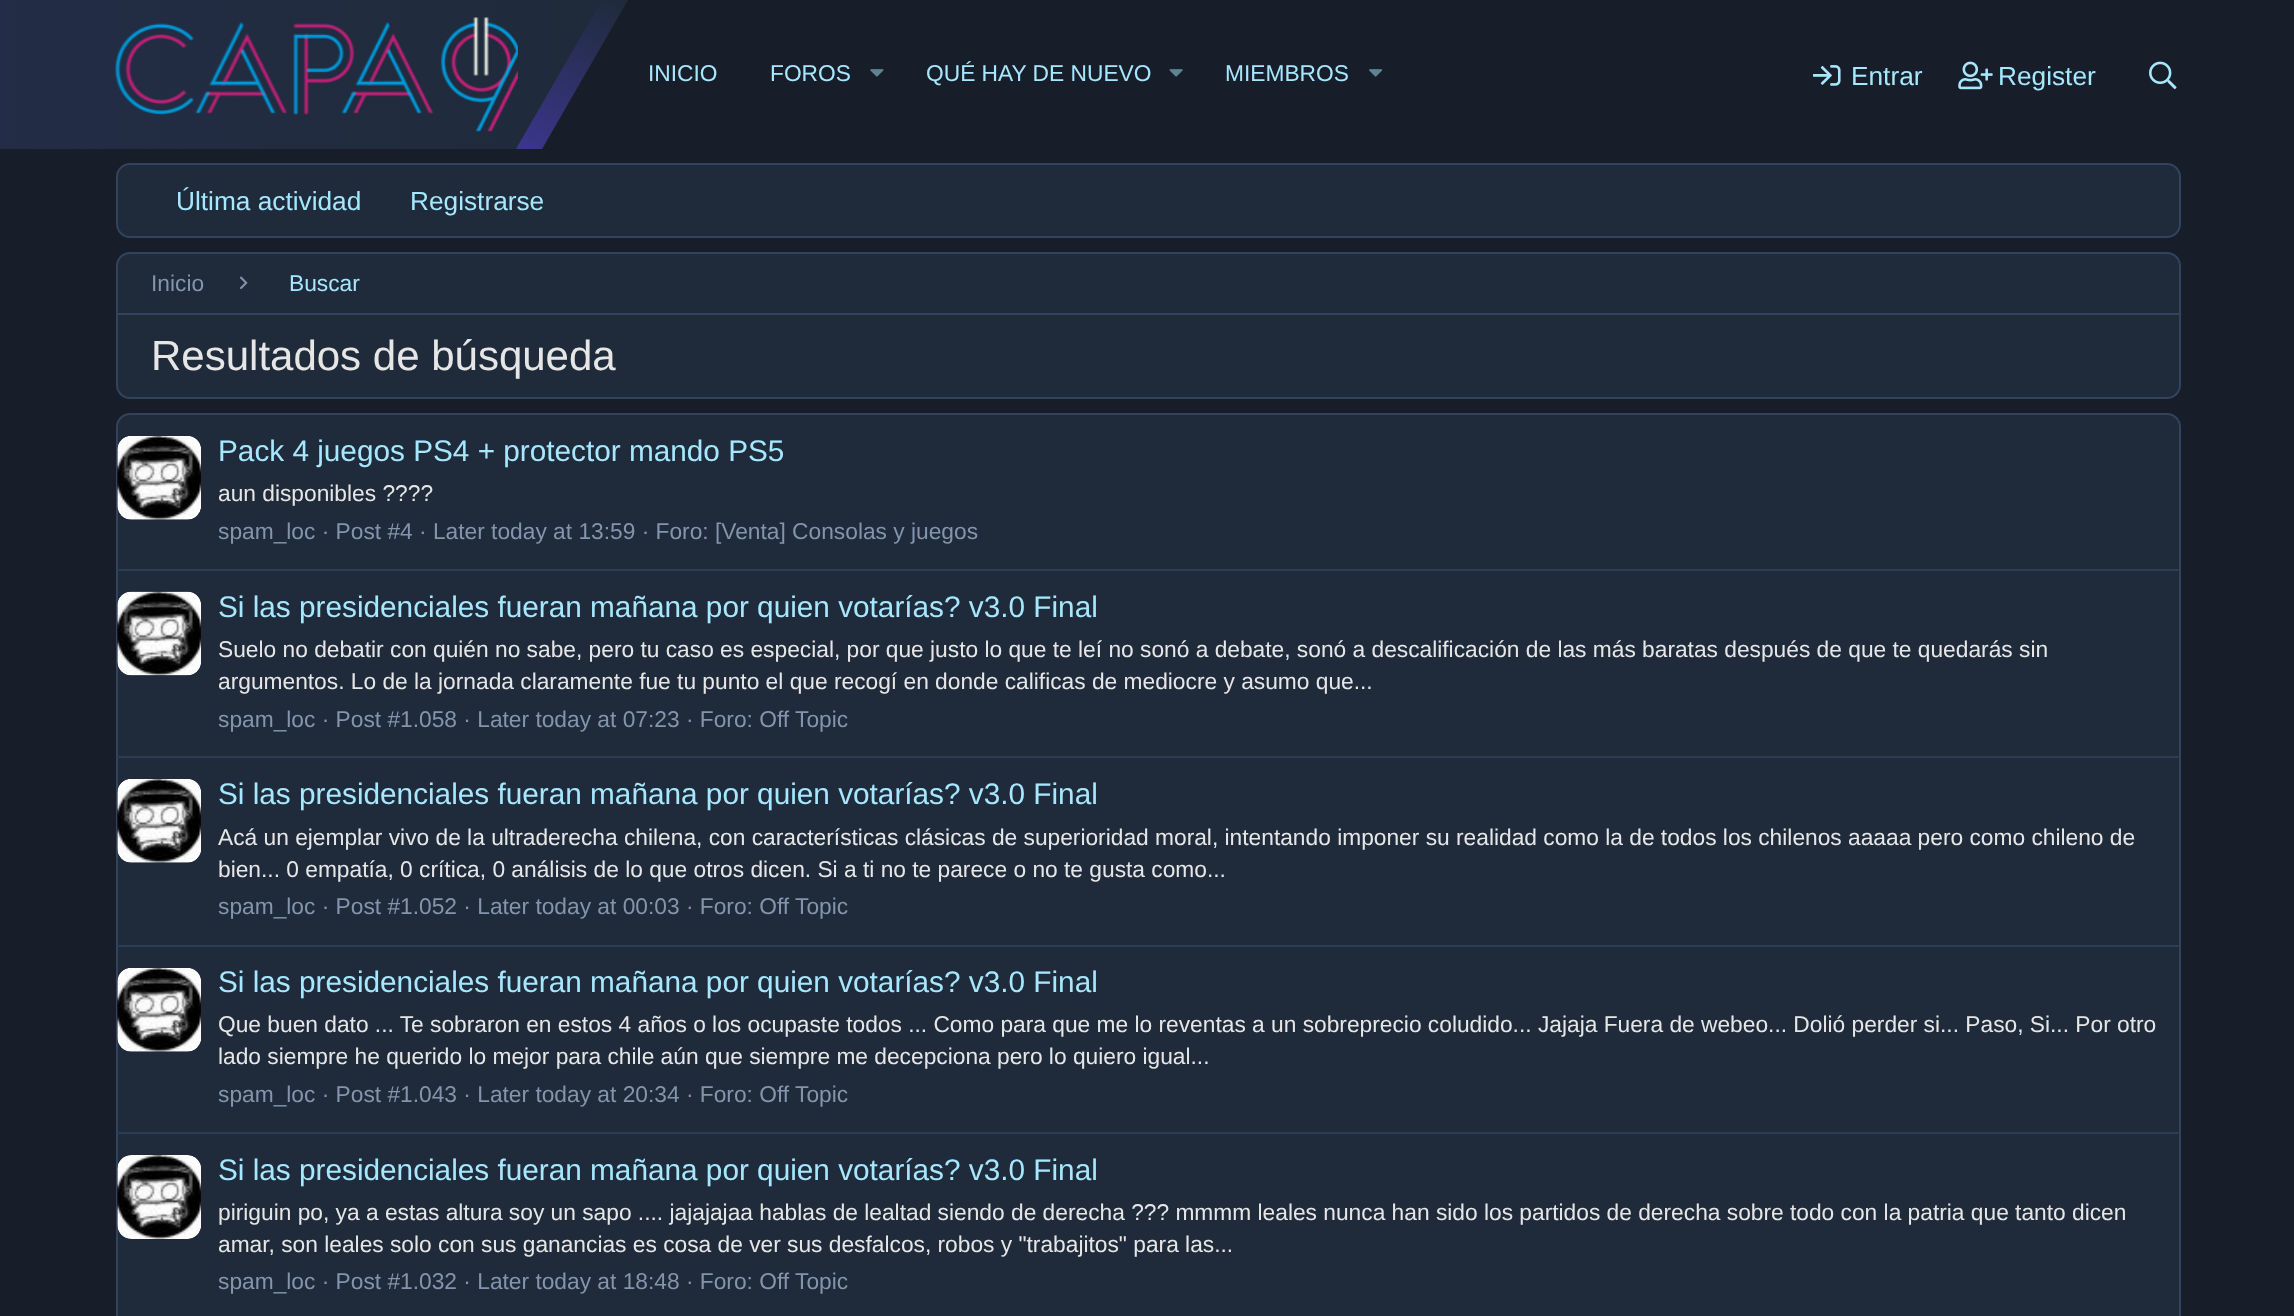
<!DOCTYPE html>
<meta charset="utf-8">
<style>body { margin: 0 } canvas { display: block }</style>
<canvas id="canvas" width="2294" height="1316"></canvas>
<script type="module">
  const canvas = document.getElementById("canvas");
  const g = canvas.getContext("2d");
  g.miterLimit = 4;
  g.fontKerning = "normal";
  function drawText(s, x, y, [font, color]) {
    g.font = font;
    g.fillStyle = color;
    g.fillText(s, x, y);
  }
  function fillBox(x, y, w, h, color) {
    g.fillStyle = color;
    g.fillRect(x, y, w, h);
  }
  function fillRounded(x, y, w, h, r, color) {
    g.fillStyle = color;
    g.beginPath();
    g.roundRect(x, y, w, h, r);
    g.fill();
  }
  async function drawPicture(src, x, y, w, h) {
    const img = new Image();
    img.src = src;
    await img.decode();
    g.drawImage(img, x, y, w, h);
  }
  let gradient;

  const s1 = ["22.75px Liberation Sans", "#A6E7FE"];
  const s2 = ["26.25px Liberation Sans", "#A6E7FE"];
  const s3 = ["22.75px Liberation Sans", "#8494AC"];
  const s4 = ["42px Liberation Sans", "#E6E6E6"];
  const s5 = ["29.75px Liberation Sans", "#A6E7FE"];
  const s6 = ["22.75px Liberation Sans", "#E6E6E6"];

  fillBox(0, 0, 2294, 1316, "#171E29");
  gradient = g.createLinearGradient(-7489, 74, 561, 74);
  gradient.addColorStop(0, "#5540D9");
  gradient.addColorStop(1, "#1F2B3B");
  g.fillStyle = gradient;
  g.beginPath();
  g.moveTo(-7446, 0);
  g.lineTo(604, 0);
  g.lineTo(518, 149);
  g.lineTo(-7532, 149);
  g.closePath();
  g.fill();
  gradient = g.createLinearGradient(443, 298, 615, 0);
  gradient.addColorStop(0, "#5540D9");
  gradient.addColorStop(1, "#1F2B3B");
  g.fillStyle = gradient;
  g.beginPath();
  g.moveTo(602, 0);
  g.lineTo(628, 0);
  g.lineTo(542, 149);
  g.lineTo(516, 149);
  g.closePath();
  g.fill();
  await drawPicture("pic1.png", 115, 17, 403, 115);
  drawText("INICIO", 648, 81, s1);
  drawText("FOROS", 770, 81, s1);
  await drawPicture("pic2.png", 870, 69, 14, 8);
  drawText("QUÉ HAY DE NUEVO", 926, 81, s1);
  await drawPicture("pic3.png", 1169, 69, 14, 8);
  drawText("MIEMBROS", 1225, 81, s1);
  await drawPicture("pic4.png", 1369, 69, 14, 8);
  await drawPicture("pic5.png", 1813, 65, 28, 21);
  drawText("Entrar", 1851, 85, s2);
  await drawPicture("pic6.png", 1958, 61, 35, 29);
  drawText("Register", 1998, 85, s2);
  await drawPicture("pic7.png", 2149, 61, 28, 29);
  g.fillStyle = "#1F2B3B";
  g.beginPath();
  g.roundRect(117, 164, 2063, 73, 13);
  g.fill();
  g.strokeStyle = "#31435D";
  g.lineWidth = 2;
  g.stroke();
  drawText("Última actividad", 176, 210, s2);
  drawText("Registrarse", 410, 210, s2);
  g.fillStyle = "#1F2B3B";
  g.beginPath();
  g.roundRect(117, 253, 2063, 145, 13);
  g.fill();
  g.stroke();
  fillBox(117, 313, 2062, 2, "#31435D");
  drawText("Inicio", 151, 291, s3);
  await drawPicture("pic8.png", 239, 276, 9, 14);
  drawText("Buscar", 289, 291, s1);
  drawText("Resultados de búsqueda", 151, 370, s4);
  g.fillStyle = "#1F2B3B";
  g.beginPath();
  g.roundRect(117, 414, 2063, 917, 13);
  g.fill();
  g.stroke();
  fillRounded(117, 436, 84, 84, 14, "#1F2B3B");
  await drawPicture("pic9.png", 117, 436, 84, 84);
  drawText("Pack 4 juegos PS4 + protector mando PS5", 218, 461, s5);
  drawText("aun disponibles ????", 218, 501, s6);
  drawText("spam_loc · Post #4 · Later today at 13:59 · Foro: [Venta] Consolas y juegos", 218, 539, s3);
  fillBox(117, 569, 2062, 2, "#2C3C53");
  fillRounded(117, 592, 84, 84, 14, "#1F2B3B");
  await drawPicture("pic10.png", 117, 591, 84, 85);
  drawText("Si las presidenciales fueran mañana por quien votarías? v3.0 Final", 218, 617, s5);
  drawText("Suelo no debatir con quién no sabe, pero tu caso es especial, por que justo lo que te leí no sonó a debate, sonó a descalificación de las más baratas después de que te quedarás sin", 218, 657, s6);
  drawText("argumentos. Lo de la jornada claramente fue tu punto el que recogí en donde calificas de mediocre y asumo que...", 218, 689, s6);
  drawText("spam_loc · Post #1.058 · Later today at 07:23 · Foro: Off Topic", 218, 727, s3);
  fillBox(117, 756, 2062, 2, "#2C3C53");
  fillRounded(117, 779, 84, 84, 14, "#1F2B3B");
  await drawPicture("pic11.png", 117, 779, 84, 84);
  drawText("Si las presidenciales fueran mañana por quien votarías? v3.0 Final", 218, 804, s5);
  drawText("Acá un ejemplar vivo de la ultraderecha chilena, con características clásicas de superioridad moral, intentando imponer su realidad como la de todos los chilenos aaaaa pero como chileno de", 218, 845, s6);
  drawText("bien... 0 empatía, 0 crítica, 0 análisis de lo que otros dicen. Si a ti no te parece o no te gusta como...", 218, 877, s6);
  drawText("spam_loc · Post #1.052 · Later today at 00:03 · Foro: Off Topic", 218, 914, s3);
  fillBox(117, 945, 2062, 2, "#2C3C53");
  fillRounded(117, 968, 84, 84, 14, "#1F2B3B");
  await drawPicture("pic12.png", 117, 968, 84, 84);
  drawText("Si las presidenciales fueran mañana por quien votarías? v3.0 Final", 218, 992, s5);
  drawText("Que buen dato ... Te sobraron en estos 4 años o los ocupaste todos ... Como para que me lo reventas a un sobreprecio coludido... Jajaja Fuera de webeo... Dolió perder si... Paso, Si... Por otro", 218, 1032, s6);
  drawText("lado siempre he querido lo mejor para chile aún que siempre me decepciona pero lo quiero igual...", 218, 1064, s6);
  drawText("spam_loc · Post #1.043 · Later today at 20:34 · Foro: Off Topic", 218, 1102, s3);
  fillBox(117, 1132, 2062, 2, "#2C3C53");
  fillRounded(117, 1155, 84, 84, 14, "#1F2B3B");
  await drawPicture("pic13.png", 117, 1155, 84, 84);
  drawText("Si las presidenciales fueran mañana por quien votarías? v3.0 Final", 218, 1180, s5);
  drawText("piriguin po, ya a estas altura soy un sapo .... jajajajaa hablas de lealtad siendo de derecha ??? mmmm leales nunca han sido los partidos de derecha sobre todo con la patria que tanto dicen", 218, 1220, s6);
  drawText("amar, son leales solo con sus ganancias es cosa de ver sus desfalcos, robos y \"trabajitos\" para las...", 218, 1252, s6);
  drawText("spam_loc · Post #1.032 · Later today at 18:48 · Foro: Off Topic", 218, 1289, s3);
</script>
